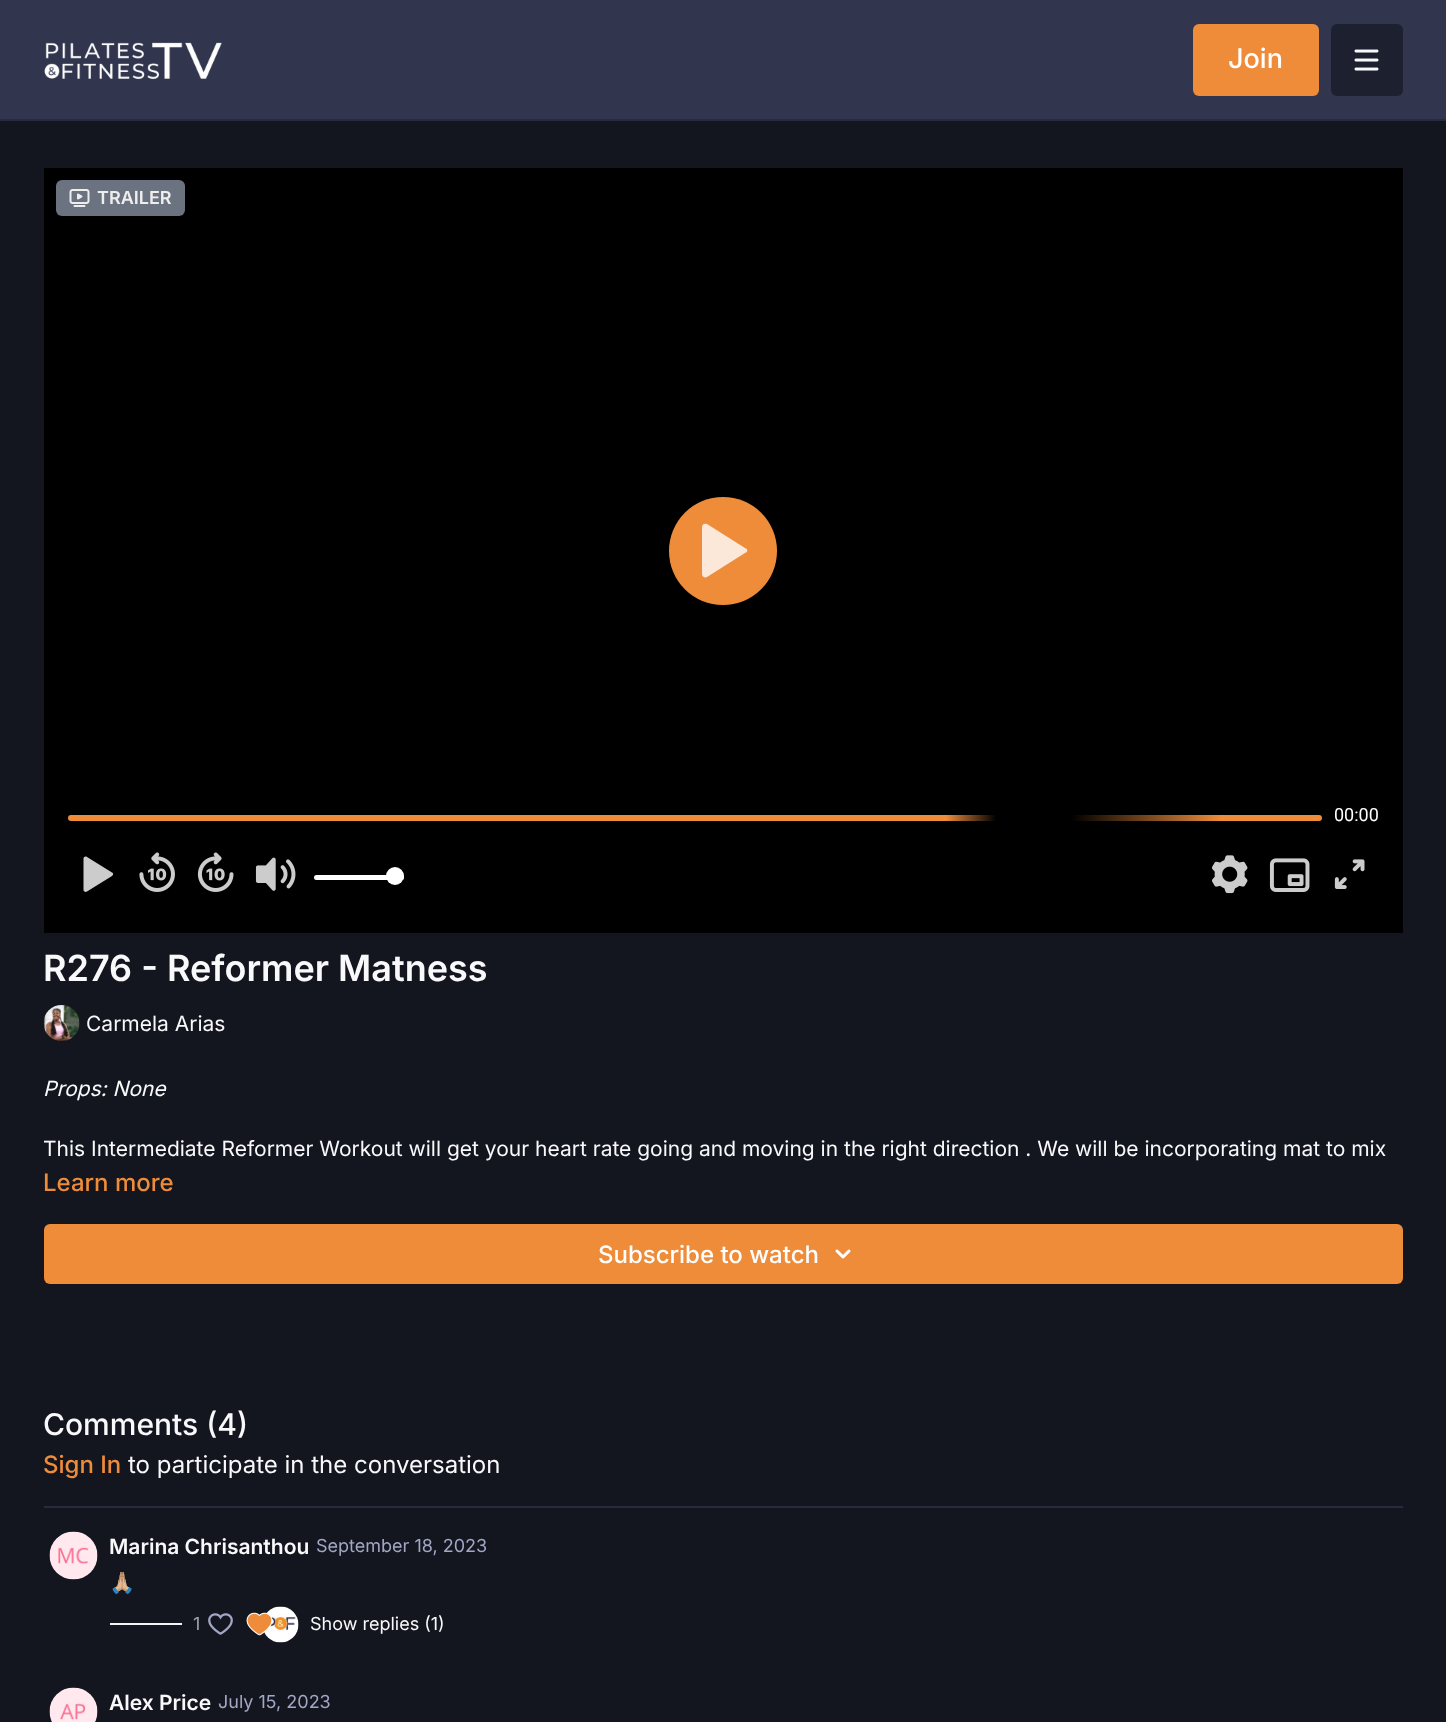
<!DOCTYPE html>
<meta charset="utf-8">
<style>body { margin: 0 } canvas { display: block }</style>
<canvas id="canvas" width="1446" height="1722"></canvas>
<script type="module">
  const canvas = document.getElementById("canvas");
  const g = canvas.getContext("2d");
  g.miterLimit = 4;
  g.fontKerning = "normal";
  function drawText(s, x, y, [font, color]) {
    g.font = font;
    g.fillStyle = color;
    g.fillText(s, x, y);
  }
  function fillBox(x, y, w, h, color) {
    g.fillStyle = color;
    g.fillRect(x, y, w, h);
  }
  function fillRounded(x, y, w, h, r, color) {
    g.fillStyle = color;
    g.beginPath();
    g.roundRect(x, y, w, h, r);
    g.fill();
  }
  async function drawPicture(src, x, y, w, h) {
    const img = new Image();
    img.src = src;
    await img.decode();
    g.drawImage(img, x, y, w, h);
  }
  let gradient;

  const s1 = ["500 27px Inter", "#FFFFFF"];
  const s2 = ["600 18px Inter", "#EEEEEE"];
  const s3 = ["18px Roboto", "#FFFFFF"];
  const s4 = ["600 36px Inter", "#F9F9FB"];
  const s5 = ["21px Inter", "#F9F9FB"];
  const s6 = ["italic 21px Inter", "#F9F9FB"];
  const s7 = ["500 24px Inter", "#EE8C3A"];
  const s8 = ["500 24px Inter", "#FFFFFF"];
  const s9 = ["500 30px Inter", "#F9F9FB"];
  const s10 = ["24px Inter", "#F9F9FB"];
  const s11 = ["600 21px Inter", "#F9F9FB"];
  const s12 = ["18px Inter", "#A1A7C4"];
  const s13 = ["21px Noto Color Emoji", "#F9F9FB"];
  const s14 = ["18px Inter", "#9CA3AF"];
  const s15 = ["18px Inter", "#F9F9FB"];

  fillBox(0, 0, 1446, 1722, "#14161F");
  fillBox(0, 0, 1446, 119, "#31364E");
  fillBox(0, 119, 1446, 2, "#272B3F");
  await drawPicture("pic1.png", 44, 42, 178, 38);
  fillRounded(1193, 24, 126, 72, 6, "#EE8C3A");
  drawText("Join", 1228, 68, s1);
  fillRounded(1331, 24, 72, 72, 6, "#1D202F");
  await drawPicture("pic2.png", 1354, 49, 25, 22);
  fillBox(44, 168, 1359, 765, "#000000");
  fillRounded(56, 180, 129, 36, 6, "#6B7280");
  await drawPicture("pic3.png", 69, 189, 21, 18);
  drawText("TRAILER", 97, 204, s2);
  g.fillStyle = "#EE8C3A";
  g.beginPath();
  g.arc(723, 551, 54, 0, Math.PI * 2);
  g.fill();
  g.fillStyle = "#FCE8D8";
  g.beginPath();
  g.moveTo(707, 524);
  g.bezierCurveTo(705, 523, 702, 524, 702, 527);
  g.lineTo(702, 574);
  g.bezierCurveTo(702, 577, 705, 578, 707, 577);
  g.lineTo(745, 553);
  g.bezierCurveTo(748, 552, 748, 549, 745, 548);
  g.closePath();
  g.fill();
  gradient = g.createLinearGradient(68, 821, 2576, 821);
  gradient.addColorStop(0.35, "#EE8C3A");
  gradient.addColorStop(0.37, "#000000");
  gradient.addColorStop(0.4, "#000000");
  gradient.addColorStop(0.46, "#EE8C3A");
  gradient.addColorStop(1, "#EE8C3A");
  g.fillStyle = gradient;
  g.beginPath();
  g.roundRect(68, 815, 1254, 6, 3);
  g.fill();
  drawText("00:00", 1334, 821, s3);
  g.fillStyle = "#CCCCCC";
  g.beginPath();
  g.moveTo(87, 857);
  g.bezierCurveTo(85.5, 856, 83.5, 857, 83.5, 858.5);
  g.lineTo(83.5, 890);
  g.bezierCurveTo(83.5, 891.5, 85.5, 892.5, 87, 891.5);
  g.lineTo(112, 876);
  g.bezierCurveTo(113.5, 875, 113.5, 873, 112, 872.5);
  g.closePath();
  g.fill();
  await drawPicture("pic4.png", 139, 852, 36, 40);
  await drawPicture("pic5.png", 197, 852, 37, 40);
  await drawPicture("pic6.png", 255, 857, 41, 34);
  fillRounded(314, 875, 90, 5, 2.5, "#FFFFFF");
  g.beginPath();
  g.arc(395, 876, 9, 0, Math.PI * 2);
  g.fill();
  await drawPicture("pic7.png", 1212, 855, 36, 39);
  await drawPicture("pic8.png", 1269, 858, 41, 34);
  await drawPicture("pic9.png", 1334, 859, 31, 30);
  drawText("R276 - Reformer Matness", 43, 981, s4);
  await drawPicture("pic10.png", 43, 1005, 37, 36);
  drawText("Carmela Arias", 86, 1031, s5);
  drawText("Props: None", 43, 1096, s6);
  drawText("This Intermediate Reformer Workout will get your heart rate going and moving in the right direction . We will be incorporating mat to mix", 43, 1156, s5);
  drawText("Learn more", 43, 1191, s7);
  fillRounded(44, 1224, 1359, 60, 6, "#EE8C3A");
  drawText("Subscribe to watch", 598, 1263, s8);
  await drawPicture("pic11.png", 835, 1249, 16, 10);
  drawText("Comments (4)", 43, 1435, s9);
  drawText("Sign In", 43, 1473, s7);
  drawText("to participate in the conversation", 128, 1473, s10);
  fillBox(44, 1506, 1359, 2, "#272B3F");
  await drawPicture("pic12.png", 49, 1531, 49, 49);
  drawText("Marina Chrisanthou", 109, 1554, s11);
  drawText("September 18, 2023", 316, 1552, s12);
  drawText("🙏🏼", 109, 1590, s13);
  fillBox(110, 1623, 72, 2, "#F3F4F6");
  drawText("1", 193, 1630, s14);
  await drawPicture("pic13.png", 208, 1613, 25, 22);
  await drawPicture("pic15.png", 264, 1606, 35, 37);
  await drawPicture("pic14.png", 246, 1612, 27, 24);
  drawText("Show replies (1)", 310, 1630, s15);
  await drawPicture("pic16.png", 49, 1687, 49, 35);
  drawText("Alex Price", 109, 1710, s11);
  drawText("July 15, 2023", 218, 1708, s12);
</script>
